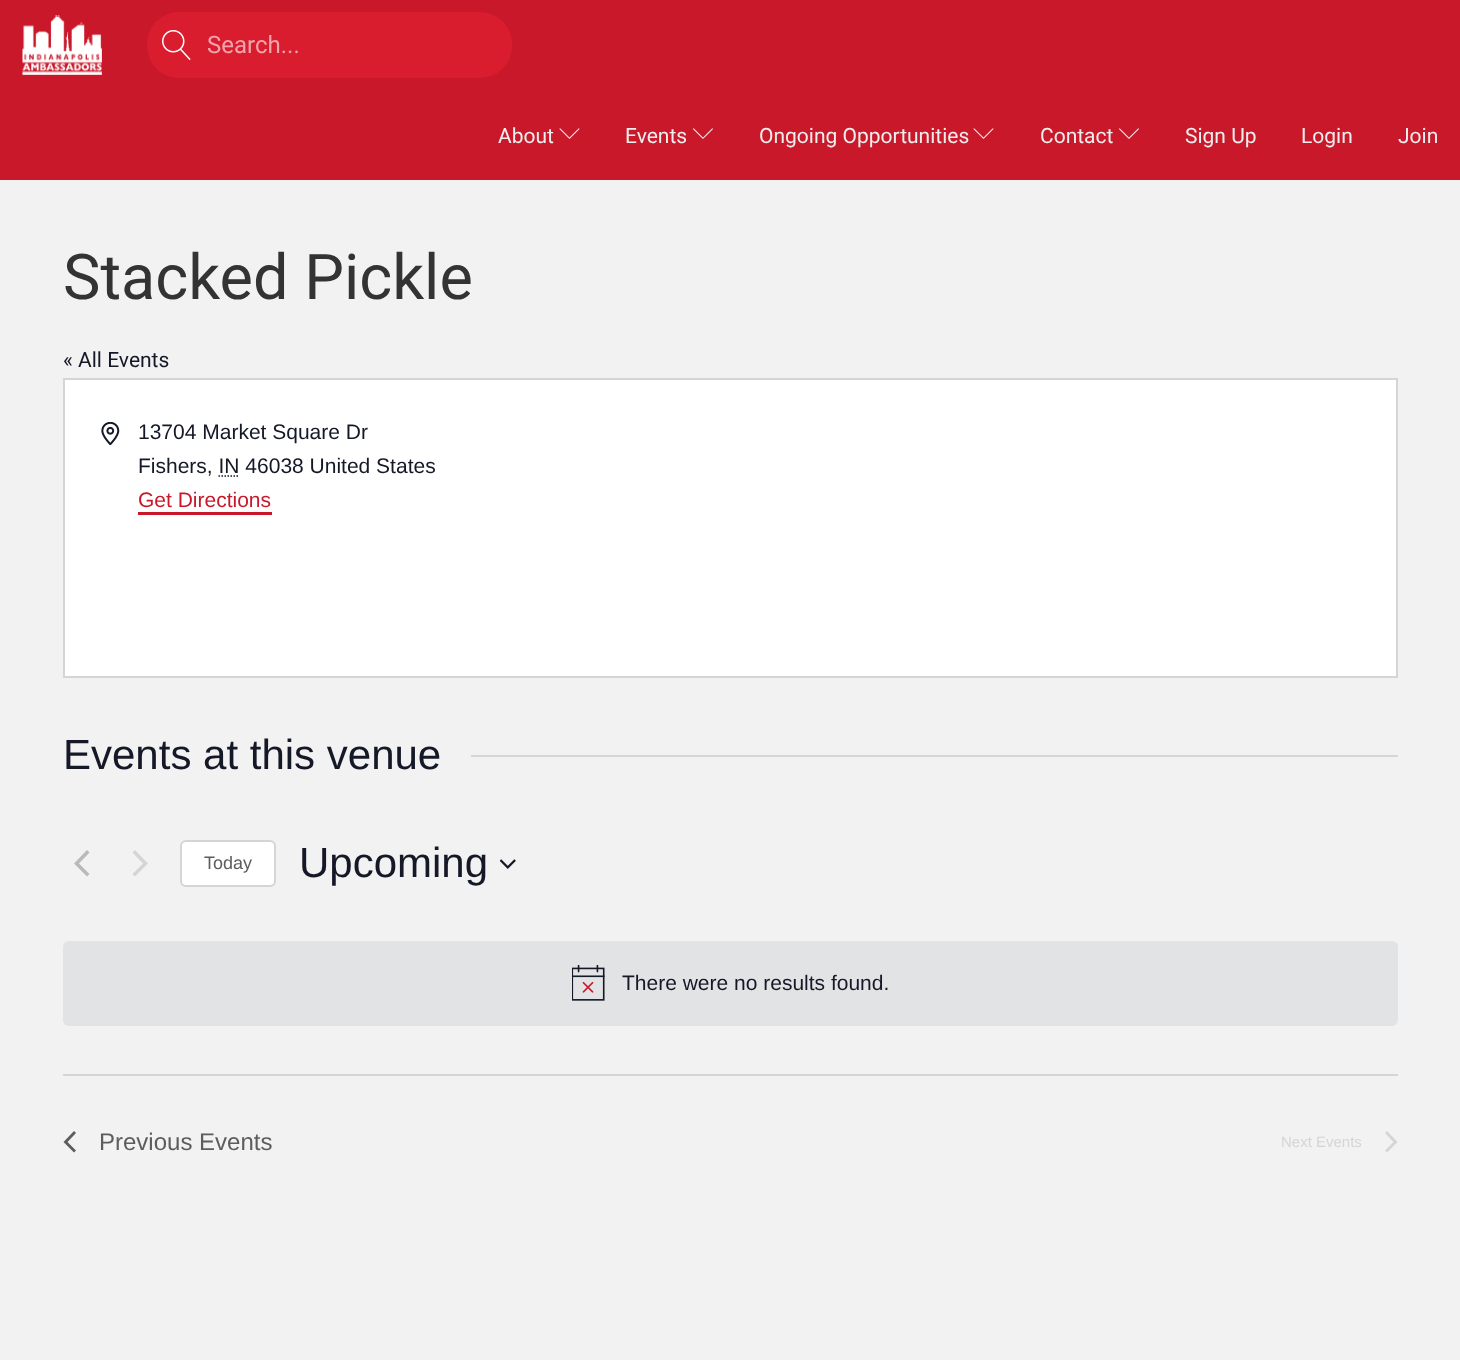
<!DOCTYPE html>
<meta charset="utf-8">
<style>body { margin: 0 } canvas { display: block }</style>
<canvas id="canvas" width="1460" height="1360"></canvas>
<script type="module">
  const canvas = document.getElementById("canvas");
  const g = canvas.getContext("2d");
  g.miterLimit = 4;
  g.fontKerning = "normal";
  function drawText(s, x, y, [font, color]) {
    g.font = font;
    g.fillStyle = color;
    g.fillText(s, x, y);
  }
  function fillBox(x, y, w, h, color) {
    g.fillStyle = color;
    g.fillRect(x, y, w, h);
  }
  function fillRounded(x, y, w, h, r, color) {
    g.fillStyle = color;
    g.beginPath();
    g.roundRect(x, y, w, h, r);
    g.fill();
  }
  async function drawPicture(src, x, y, w, h) {
    const img = new Image();
    img.src = src;
    await img.decode();
    g.drawImage(img, x, y, w, h);
  }

  const s1 = ["24px Roboto", "#F0A5AC"];
  const s2 = ["21px Roboto", "#EEEEEE"];
  const s3 = ["63px Roboto", "#333333"];
  const s4 = ["21px Roboto", "#141827"];
  const s5 = ["21px Liberation Sans", "#141827"];
  const s6 = ["21px Liberation Sans", "#C91829"];
  const s7 = ["42px Liberation Sans", "#141827"];
  const s8 = ["18px Liberation Sans", "#5D5D5D"];
  const s9 = ["24px Liberation Sans", "#5D5D5D"];
  const s10 = ["15px Liberation Sans", "#D5D5D5"];

  fillBox(0, 0, 1460, 1360, "#F2F2F2");
  fillBox(0, 0, 1460, 180, "#C91829");
  await drawPicture("pic1.png", 22, 15, 80, 60);
  fillRounded(147, 12, 365, 66, 32, "#D91D2F");
  await drawPicture("pic2.png", 162, 30, 29, 30);
  drawText("Search...", 207, 53, s1);
  drawText("About", 498, 143, s2);
  await drawPicture("pic3.png", 559, 128, 21, 11);
  drawText("Events", 625, 143, s2);
  await drawPicture("pic4.png", 693, 128, 20, 11);
  drawText("Ongoing Opportunities", 759, 143, s2);
  await drawPicture("pic3.png", 973, 128, 21, 11);
  drawText("Contact", 1040, 143, s2);
  await drawPicture("pic4.png", 1119, 128, 20, 11);
  drawText("Sign Up", 1185, 143, s2);
  drawText("Login", 1301, 143, s2);
  drawText("Join", 1398, 143, s2);
  drawText("Stacked Pickle", 63, 299, s3);
  drawText("« All Events", 63, 367, s4);
  g.fillStyle = "#FFFFFF";
  g.beginPath();
  g.rect(64, 379, 1333, 298);
  g.fill();
  g.strokeStyle = "#D5D5D5";
  g.lineWidth = 2;
  g.stroke();
  await drawPicture("pic5.png", 101, 422, 19, 24);
  drawText("13704 Market Square Dr", 138, 439, s5);
  drawText("Fishers, IN 46038 United States", 138, 473, s5);
  g.beginPath();
  g.moveTo(218.5, 476);
  g.lineTo(239.5, 476);
  g.strokeStyle = "#141827";
  g.lineWidth = 1.5;
  g.setLineDash([1.5, 1.5]);
  g.stroke();
  drawText("Get Directions", 138, 507, s6);
  fillBox(138, 512, 134, 3, "#C91829");
  drawText("Events at this venue", 63, 769, s7);
  fillBox(471, 755, 927, 2, "#D5D5D5");
  g.fillStyle = "#BABABA";
  g.beginPath();
  g.moveTo(89.5, 874);
  g.lineTo(87, 876.5);
  g.lineTo(74, 863.5);
  g.lineTo(87, 850);
  g.lineTo(89.5, 852.5);
  g.lineTo(79, 863.5);
  g.closePath();
  g.fill();
  g.fillStyle = "#D5D5D5";
  g.beginPath();
  g.moveTo(132.5, 852.5);
  g.lineTo(135, 850);
  g.lineTo(148, 863.5);
  g.lineTo(135, 876.5);
  g.lineTo(132.5, 874);
  g.lineTo(143, 863.5);
  g.closePath();
  g.fill();
  g.fillStyle = "#FFFFFF";
  g.beginPath();
  g.roundRect(181, 841, 94, 45, 5);
  g.fill();
  g.strokeStyle = "#D5D5D5";
  g.lineWidth = 2;
  g.setLineDash([]);
  g.stroke();
  drawText("Today", 204, 869, s8);
  drawText("Upcoming", 299, 877, s7);
  await drawPicture("pic6.png", 500, 859, 16, 10);
  fillRounded(63, 941, 1335, 85, 6, "#E2E3E4");
  await drawPicture("pic7.png", 572, 965, 33, 36);
  drawText("There were no results found.", 622, 990, s5);
  fillBox(63, 1074, 1335, 2, "#D5D5D5");
  g.fillStyle = "#5D5D5D";
  g.beginPath();
  g.moveTo(76, 1150.5);
  g.lineTo(74, 1152.5);
  g.lineTo(63.5, 1142);
  g.lineTo(74, 1131);
  g.lineTo(76, 1133);
  g.lineTo(67.5, 1142);
  g.closePath();
  g.fill();
  drawText("Previous Events", 99, 1150, s9);
  drawText("Next Events", 1281, 1147, s10);
  g.beginPath();
  g.moveTo(1385, 1133);
  g.lineTo(1387, 1131);
  g.lineTo(1397.5, 1142);
  g.lineTo(1387, 1152.5);
  g.lineTo(1385, 1150.5);
  g.lineTo(1393.5, 1142);
  g.closePath();
  g.fill();
</script>
